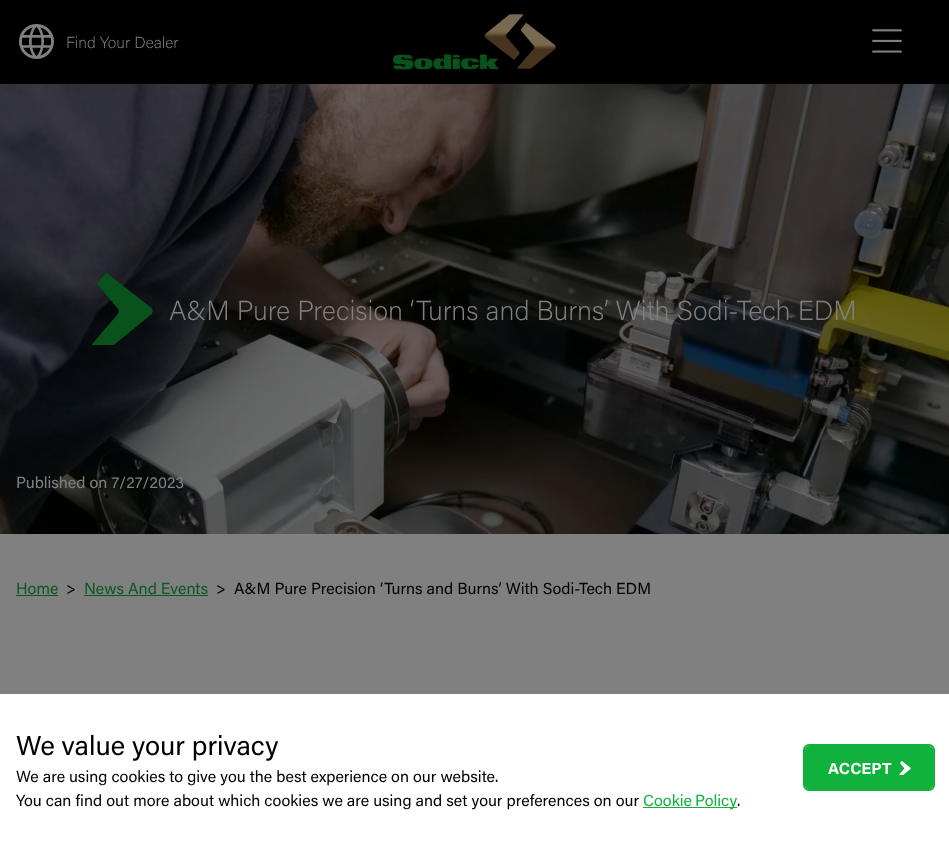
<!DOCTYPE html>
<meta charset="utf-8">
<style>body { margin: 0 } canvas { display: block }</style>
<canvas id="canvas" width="949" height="841"></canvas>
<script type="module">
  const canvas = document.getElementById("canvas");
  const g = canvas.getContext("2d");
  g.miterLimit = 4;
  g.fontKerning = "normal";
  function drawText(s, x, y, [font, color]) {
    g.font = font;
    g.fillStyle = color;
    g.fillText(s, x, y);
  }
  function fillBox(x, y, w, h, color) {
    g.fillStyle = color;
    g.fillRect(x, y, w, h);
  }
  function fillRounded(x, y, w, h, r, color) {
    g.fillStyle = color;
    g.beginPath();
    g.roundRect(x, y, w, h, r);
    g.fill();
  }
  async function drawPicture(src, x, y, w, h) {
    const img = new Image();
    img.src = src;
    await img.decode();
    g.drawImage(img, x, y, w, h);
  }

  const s1 = ["200 16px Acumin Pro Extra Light", "#808080"];
  const s2 = ["200 27.35px Acumin Pro Extra Light", "#808080"];
  const s3 = ["16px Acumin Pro", "#808080"];
  const s4 = ["16px Acumin Pro", "#09591E"];
  const s5 = ["16px Acumin Pro", "#000000"];
  const s6 = ["27.35px Acumin Pro", "#000000"];
  const s7 = ["16px Acumin Pro", "#11B23B"];
  const s8 = ["bold 16px Acumin Pro", "#FFFFFF"];

  fillBox(0, 0, 949, 841, "#808080");
  fillBox(0, 0, 949, 84, "#000000");
  await drawPicture("pic1.png", 19, 24, 35, 35);
  drawText("Find Your Dealer", 66, 48, s1);
  await drawPicture("pic2.png", 393, 14, 163, 56);
  await drawPicture("pic3.png", 872, 29, 30, 24);
  await drawPicture("pic4.png", 0, 84, 949, 450);
  await drawPicture("pic5.png", 92, 273, 61, 72);
  drawText("A&M Pure Precision ‘Turns and Burns’ With Sodi-Tech EDM", 169, 320, s2);
  drawText("Published on 7/27/2023", 16, 488, s3);
  drawText("Home", 16, 594, s4);
  fillBox(16, 595, 42, 1, "#09591E");
  drawText(">", 66, 594, s5);
  drawText("News And Events", 84, 594, s4);
  fillBox(84, 595, 124, 1, "#09591E");
  drawText(">", 216, 594, s5);
  drawText("A&M Pure Precision ‘Turns and Burns’ With Sodi-Tech EDM", 234, 594, s5);
  fillBox(0, 694, 949, 147, "#FFFFFF");
  drawText("We value your privacy", 16, 755, s6);
  drawText("We are using cookies to give you the best experience on our website.", 16, 782, s5);
  drawText("You can find out more about which cookies we are using and set your preferences on our", 16, 806, s5);
  fillBox(643, 807, 94, 1, "#11B23B");
  g.wordSpacing = "-1px";
  drawText("Cookie Policy", 643, 806, s7);
  g.wordSpacing = "0px";
  drawText(".", 737, 806, s5);
  fillRounded(805, 746, 128, 43, 4, "#11B23B");
  g.beginPath();
  g.roundRect(804, 745, 130, 45, 5);
  g.strokeStyle = "#11B23B";
  g.lineWidth = 2;
  g.stroke();
  drawText("ACCEPT", 828, 774, s8);
  await drawPicture("pic6.png", 899, 761, 12, 14);
</script>
